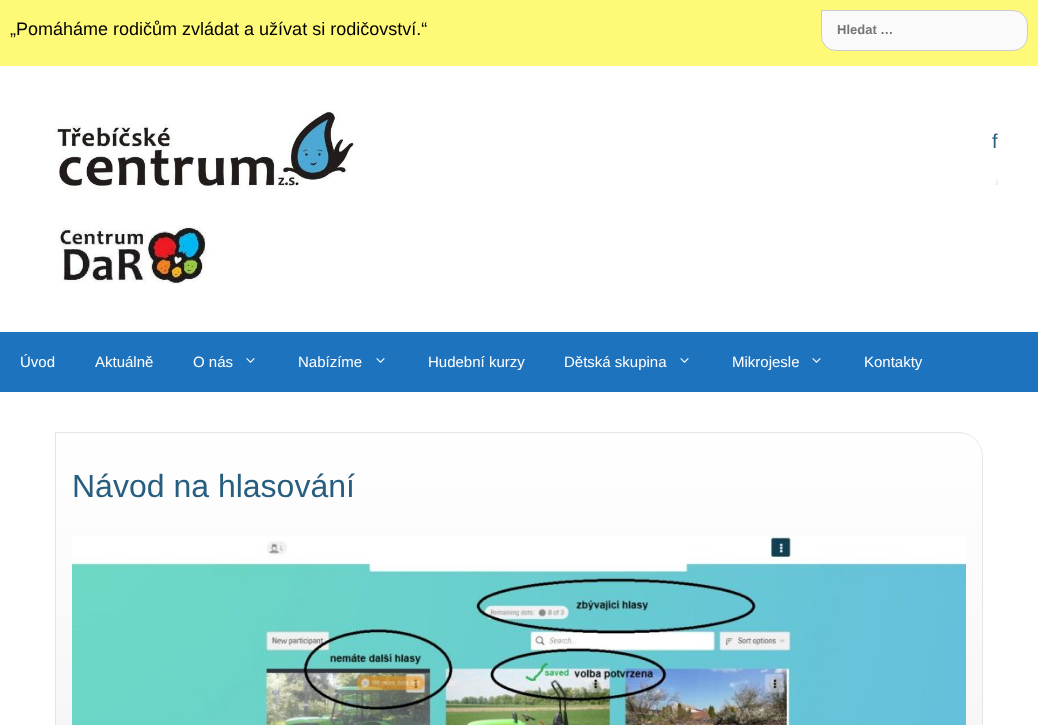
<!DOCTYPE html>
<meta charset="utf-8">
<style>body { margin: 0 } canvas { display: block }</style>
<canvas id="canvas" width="1038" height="725"></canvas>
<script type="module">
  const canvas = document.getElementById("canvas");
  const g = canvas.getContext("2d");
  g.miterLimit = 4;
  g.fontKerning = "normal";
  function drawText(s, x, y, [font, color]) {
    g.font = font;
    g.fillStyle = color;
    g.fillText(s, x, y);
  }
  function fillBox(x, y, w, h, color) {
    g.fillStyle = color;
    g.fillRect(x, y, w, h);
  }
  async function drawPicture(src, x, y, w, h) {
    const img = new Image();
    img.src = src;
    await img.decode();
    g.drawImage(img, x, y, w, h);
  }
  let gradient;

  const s1 = ["18px Liberation Sans", "#000000"];
  const s2 = ["bold 13px Liberation Sans", "#757575"];
  const s3 = ["20px Liberation Sans", "#275E7F"];
  const s4 = ["15px Liberation Sans", "#FFFFFF"];
  const s5 = ["32px Liberation Sans", "#275E7F"];

  fillBox(0, 0, 1038, 725, "#FEF977");
  drawText("„Pomáháme rodičům zvládat a užívat si rodičovství.“", 10, 35, s1);
  g.fillStyle = "#FAFAFA";
  g.beginPath();
  g.roundRect(821.5, 10.5, 206, 40, [0, 14.5, 14.5, 14.5]);
  g.fill();
  g.strokeStyle = "#CCCCCC";
  g.stroke();
  drawText("Hledat …", 837, 34, s2);
  fillBox(0, 66, 1038, 266, "#FFFFFF");
  await drawPicture("pic1.png", 54, 111, 303, 174);
  drawText("f", 992, 148, s3);
  g.save();
  g.beginPath();
  g.rect(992, 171, 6, 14);
  g.clip();
  g.fillStyle = "rgba(0, 0, 0, 0.5)";
  g.filter = "blur(2.5px)";
  g.beginPath();
  g.roundRect(999, 180, 10, 10, 5);
  g.fill();
  g.filter = "none";
  g.restore();
  fillBox(0, 332, 1038, 60, "#1E73BE");
  drawText("Úvod", 20, 367, s4);
  drawText("Aktuálně", 95, 367, s4);
  drawText("O nás", 193, 367, s4);
  await drawPicture("pic2.png", 246, 358, 9, 5);
  drawText("Nabízíme", 298, 367, s4);
  await drawPicture("pic2.png", 376, 358, 9, 5);
  drawText("Hudební kurzy", 428, 367, s4);
  drawText("Dětská skupina", 564, 367, s4);
  await drawPicture("pic2.png", 680, 358, 9, 5);
  drawText("Mikrojesle", 732, 367, s4);
  await drawPicture("pic2.png", 812, 358, 9, 5);
  drawText("Kontakty", 864, 367, s4);
  fillBox(0, 392, 1038, 333, "#FFFFFF");
  g.save();
  g.beginPath();
  g.moveTo(55, 432);
  g.lineTo(958, 432);
  g.bezierCurveTo(972, 432, 983, 443, 983, 457);
  g.lineTo(983, 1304);
  g.bezierCurveTo(983, 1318, 972, 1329, 958, 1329);
  g.lineTo(80, 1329);
  g.bezierCurveTo(66, 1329, 55, 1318, 55, 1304);
  g.closePath();
  g.clip();
  gradient = g.createLinearGradient(519, 433, 519, 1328);
  gradient.addColorStop(0, "#FFFFFF");
  gradient.addColorStop(1, "#E5E5E5");
  g.fillStyle = gradient;
  g.fillRect(56, 433, 927, 292);
  g.restore();
  g.beginPath();
  g.moveTo(55.5, 432.5);
  g.lineTo(958, 432.5);
  g.bezierCurveTo(971.5, 432.5, 982.5, 443.5, 982.5, 457);
  g.lineTo(982.5, 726);
  g.bezierCurveTo(982.5, 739.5, 971.5, 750.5, 958, 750.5);
  g.lineTo(80, 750.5);
  g.bezierCurveTo(66.5, 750.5, 55.5, 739.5, 55.5, 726);
  g.closePath();
  g.strokeStyle = "#E5E5E5";
  g.stroke();
  drawText("Návod na hlasování", 72, 497, s5);
  await drawPicture("pic3.png", 72, 536, 894, 189);
</script>
